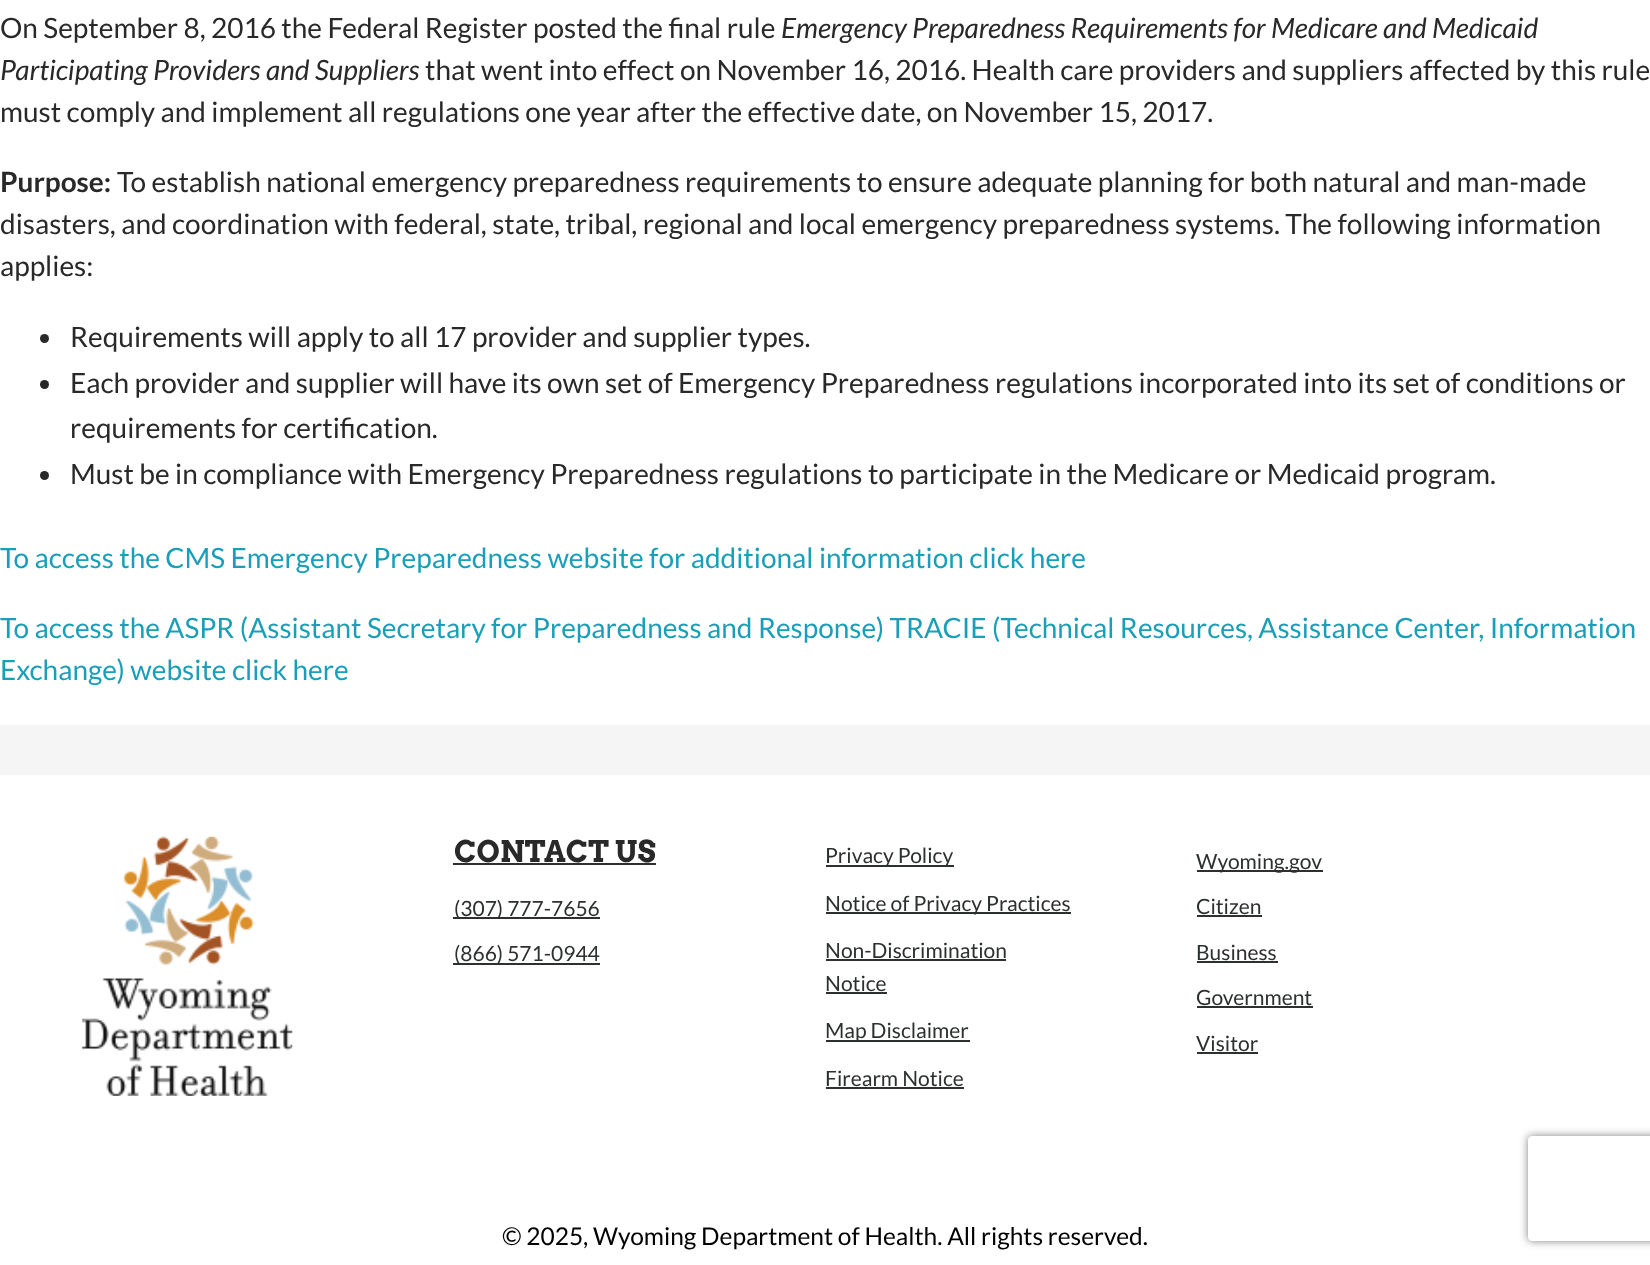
<!DOCTYPE html>
<meta charset="utf-8">
<style>body { margin: 0 } canvas { display: block }</style>
<canvas id="canvas" width="1650" height="1265"></canvas>
<script type="module">
  const canvas = document.getElementById("canvas");
  const g = canvas.getContext("2d");
  g.miterLimit = 4;
  g.fontKerning = "normal";
  function drawText(s, x, y, [font, color]) {
    g.font = font;
    g.fillStyle = color;
    g.fillText(s, x, y);
  }
  function fillBox(x, y, w, h, color) {
    g.fillStyle = color;
    g.fillRect(x, y, w, h);
  }
  async function drawPicture(src, x, y, w, h) {
    const img = new Image();
    img.src = src;
    await img.decode();
    g.drawImage(img, x, y, w, h);
  }

  const s1 = ["28px Lato", "#292929"];
  const s2 = ["italic 28px Lato", "#292929"];
  const s3 = ["bold 28px Lato", "#292929"];
  const s4 = ["28px Lato", "#1B9FB9"];
  const s5 = ["bold 29.75px Arvo", "#292929"];
  const s6 = ["21px Lato", "#2C302E"];
  const s7 = ["24.5px Lato", "#000000"];

  fillBox(0, 0, 1650, 1265, "#FFFFFF");
  drawText("On September 8, 2016 the Federal Register posted the final rule", 0, 38, s1);
  drawText("Emergency Preparedness Requirements for Medicare and Medicaid", 781, 38, s2);
  drawText("Participating Providers and Suppliers", 0, 80, s2);
  drawText("that went into effect on November 16, 2016. Health care providers and suppliers affected by this rule", 425, 80, s1);
  drawText("must comply and implement all regulations one year after the effective date, on November 15, 2017.", 0, 122, s1);
  drawText("Purpose:", 0, 192, s3);
  drawText("To establish national emergency preparedness requirements to ensure adequate planning for both natural and man-made", 117, 192, s1);
  drawText("disasters, and coordination with federal, state, tribal, regional and local emergency preparedness systems. The following information", 0, 234, s1);
  drawText("applies:", 0, 276, s1);
  g.beginPath();
  g.arc(44.5, 338.5, 4.5, 0, Math.PI * 2);
  g.fill();
  drawText("Requirements will apply to all 17 provider and supplier types.", 70, 347, s1);
  g.beginPath();
  g.arc(44.5, 384.5, 4.5, 0, Math.PI * 2);
  g.fill();
  drawText("Each provider and supplier will have its own set of Emergency Preparedness regulations incorporated into its set of conditions or", 70, 393, s1);
  drawText("requirements for certification.", 70, 438, s1);
  g.beginPath();
  g.arc(44.5, 475.5, 4.5, 0, Math.PI * 2);
  g.fill();
  drawText("Must be in compliance with Emergency Preparedness regulations to participate in the Medicare or Medicaid program.", 70, 484, s1);
  drawText("To access the CMS Emergency Preparedness website for additional information click here", 0, 568, s4);
  drawText("To access the ASPR (Assistant Secretary for Preparedness and Response) TRACIE (Technical Resources, Assistance Center, Information", 0, 638, s4);
  drawText("Exchange) website click here", 0, 680, s4);
  fillBox(0, 725, 1650, 50, "#F5F5F5");
  await drawPicture("pic1.png", 82, 836, 211, 260);
  drawText("CONTACT US", 454, 862, s5);
  fillBox(453, 863, 203, 2, "#2C302E");
  fillBox(453, 917, 147, 2, "#2C302E");
  drawText("(307) 777-7656", 454, 916, s6);
  fillBox(453, 963, 147, 2, "#2C302E");
  drawText("(866) 571-0944", 454, 961, s6);
  fillBox(826, 865, 128, 2, "#2C302E");
  drawText("Privacy Policy", 825, 863, s6);
  fillBox(826, 912, 245, 2, "#2C302E");
  drawText("Notice of Privacy Practices", 825, 911, s6);
  drawText("Non-Discrimination", 825, 958, s6);
  fillBox(826, 959, 180, 2, "#2C302E");
  drawText("Notice", 825, 991, s6);
  fillBox(826, 992, 61, 2, "#2C302E");
  fillBox(826, 1040, 144, 2, "#2C302E");
  drawText("Map Disclaimer", 825, 1038, s6);
  drawText("Firearm Notice", 825, 1086, s6);
  fillBox(826, 1087, 138, 2, "#2C302E");
  fillBox(1197, 870, 126, 2, "#2C302E");
  drawText("Wyoming.gov", 1196, 869, s6);
  drawText("Citizen", 1196, 914, s6);
  fillBox(1197, 915, 65, 2, "#2C302E");
  drawText("Business", 1196, 960, s6);
  fillBox(1197, 961, 81, 2, "#2C302E");
  drawText("Government", 1196, 1005, s6);
  fillBox(1197, 1006, 116, 2, "#2C302E");
  drawText("Visitor", 1196, 1051, s6);
  fillBox(1197, 1052, 61, 2, "#2C302E");
  drawText("© 2025, Wyoming Department of Health. All rights reserved.", 502, 1245, s7);
  g.save();
  g.beginPath();
  g.moveTo(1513, 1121);
  g.lineTo(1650, 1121);
  g.lineTo(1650, 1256);
  g.lineTo(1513, 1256);
  g.closePath();
  g.moveTo(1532, 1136);
  g.lineTo(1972, 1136);
  g.bezierCurveTo(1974, 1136, 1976, 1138, 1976, 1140);
  g.lineTo(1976, 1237);
  g.bezierCurveTo(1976, 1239, 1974, 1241, 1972, 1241);
  g.lineTo(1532, 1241);
  g.bezierCurveTo(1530, 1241, 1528, 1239, 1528, 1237);
  g.lineTo(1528, 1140);
  g.bezierCurveTo(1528, 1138, 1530, 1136, 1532, 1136);
  g.closePath();
  g.clip("evenodd");
  g.fillStyle = "#808080";
  g.filter = "blur(4.5px)";
  g.beginPath();
  g.roundRect(1528, 1136, 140, 105, 4);
  g.fill();
  g.filter = "none";
  g.restore();
</script>
